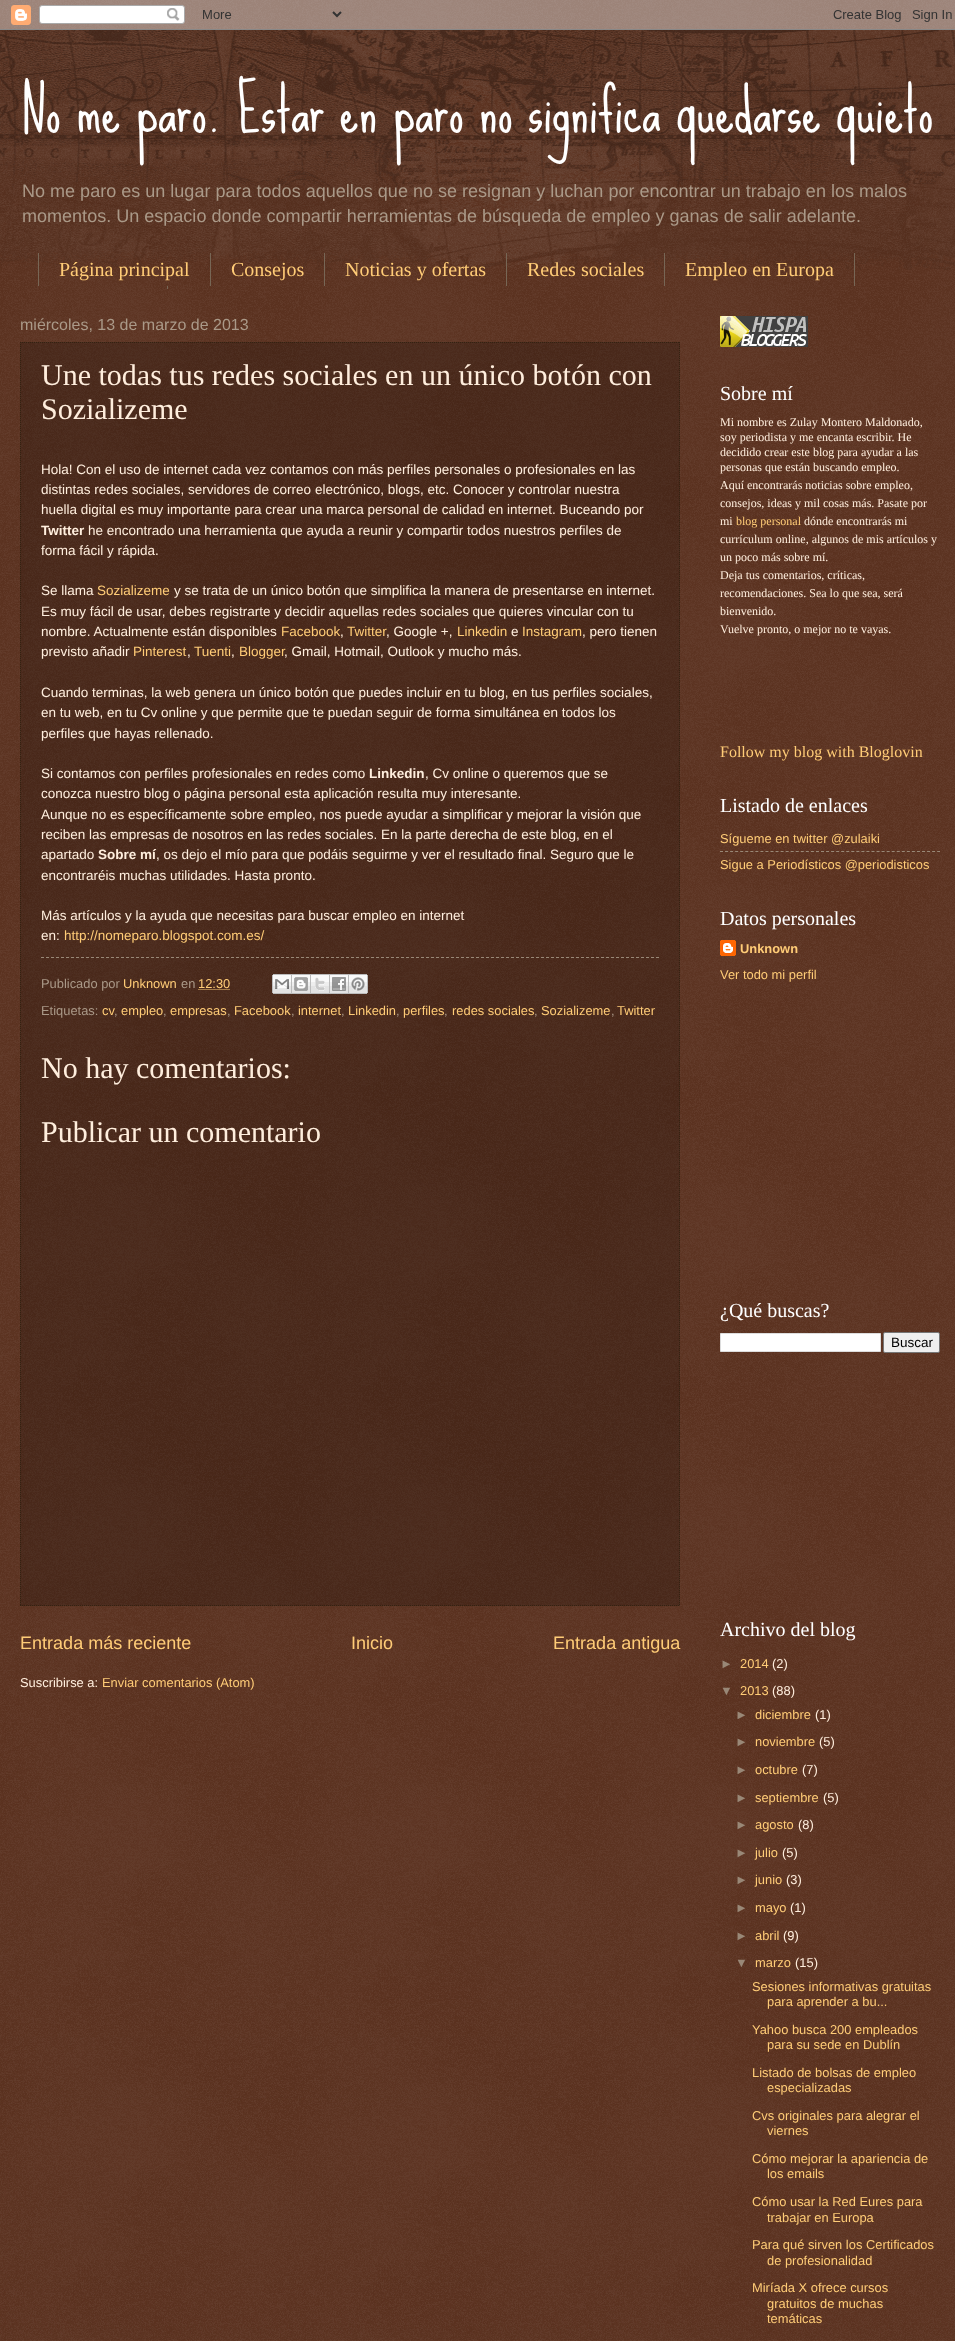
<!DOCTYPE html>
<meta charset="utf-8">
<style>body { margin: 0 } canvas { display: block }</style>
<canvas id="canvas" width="955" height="2341"></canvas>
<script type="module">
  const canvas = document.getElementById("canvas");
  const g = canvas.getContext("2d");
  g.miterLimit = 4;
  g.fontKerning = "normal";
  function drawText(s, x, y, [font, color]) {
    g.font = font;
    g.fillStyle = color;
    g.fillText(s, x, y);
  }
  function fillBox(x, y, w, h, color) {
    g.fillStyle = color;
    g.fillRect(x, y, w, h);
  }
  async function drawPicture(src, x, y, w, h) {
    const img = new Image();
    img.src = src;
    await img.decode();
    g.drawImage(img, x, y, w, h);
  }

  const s1 = ["60px Sue Ellen Francisco", "#FFFFFF"];
  const s2 = ["18.05px Liberation Sans", "#AA9988"];
  const s3 = ["20px Liberation Serif", "#FFCC77"];
  const s4 = ["16px Liberation Sans", "#AA9988"];
  const s5 = ["30px Liberation Serif", "#FFEEDD"];
  const s6 = ["13.5px Liberation Sans", "#FFEEDD"];
  const s7 = ["bold 13.5px Liberation Sans", "#FFEEDD"];
  const s8 = ["13.5px Liberation Sans", "#FFCC77"];
  const s9 = ["12.9px Liberation Sans", "#AA9988"];
  const s10 = ["12.9px Liberation Sans", "#FFCC77"];
  const s11 = ["18.05px Liberation Sans", "#FFCC77"];
  const s12 = ["12.9px Liberation Sans", "#FFEEDD"];
  const s13 = ["20px Liberation Serif", "#FFFFFF"];
  const s14 = ["12px Liberation Serif", "#FFEEDD"];
  const s15 = ["12px Liberation Serif", "#FFCC77"];
  const s16 = ["16px Liberation Serif", "#FFCC77"];
  const s17 = ["bold 12.9px Liberation Sans", "#FFCC77"];
  const s18 = ["13.5px Liberation Sans", "#000000"];
  const s19 = ["12.9px Liberation Sans", "#998877"];

  fillBox(0, 0, 955, 2341, "#441500");
  await drawPicture("pic1.png", 0, 0, 955, 2341);
  await drawPicture("pic2.png", 0, 0, 955, 30);
  await drawPicture("pic3.png", 0, 30, 955, 240);
  drawText("No me paro. Estar en paro no significa quedarse quieto", 20, 132, s1);
  drawText("No me paro es un lugar para todos aquellos que no se resignan y luchan por encontrar un trabajo en los malos", 22, 197, s2);
  drawText("momentos. Un espacio donde compartir herramientas de búsqueda de empleo y ganas de salir adelante.", 22, 222, s2);
  fillBox(210, 253, 1, 33, "#776655");
  fillBox(38, 253, 1, 33, "#776655");
  drawText("Página principal", 59, 276, s3);
  fillBox(324, 253, 1, 33, "#776655");
  drawText("Consejos", 231, 276, s3);
  fillBox(506, 253, 1, 33, "#776655");
  drawText("Noticias y ofertas", 345, 276, s3);
  fillBox(664, 253, 1, 33, "#776655");
  drawText("Redes sociales", 527, 276, s3);
  fillBox(854, 253, 1, 33, "#776655");
  drawText("Empleo en Europa", 685, 276, s3);
  fillBox(167, 286, 1, 3, "#776655");
  drawText("miércoles, 13 de marzo de 2013", 20, 330, s4);
  fillBox(20, 342, 660, 1264, "rgba(0, 0, 0, 0.2)");
  g.beginPath();
  g.moveTo(20, 342.5);
  g.lineTo(680, 342.5);
  g.strokeStyle = "#332211";
  g.setLineDash([1, 1]);
  g.stroke();
  g.beginPath();
  g.moveTo(679.5, 342);
  g.lineTo(679.5, 1606);
  g.stroke();
  g.beginPath();
  g.moveTo(20, 1605.5);
  g.lineTo(680, 1605.5);
  g.stroke();
  g.beginPath();
  g.moveTo(20.5, 342);
  g.lineTo(20.5, 1606);
  g.stroke();
  drawText("Une todas tus redes sociales en un único botón con", 41, 385, s5);
  drawText("Sozializeme", 41, 419, s5);
  drawText("Hola! Con el uso de internet cada vez contamos con más perfiles personales o profesionales en las", 41, 474, s6);
  drawText("distintas redes sociales, servidores de correo electrónico, blogs, etc. Conocer y controlar nuestra", 41, 494, s6);
  drawText("huella digital es muy importante para crear una marca personal de calidad en internet. Buceando por", 41, 514, s6);
  drawText("Twitter", 41, 535, s7);
  drawText("he encontrado una herramienta que ayuda a reunir y compartir todos nuestros perfiles de", 88, 535, s6);
  drawText("forma fácil y rápida.", 41, 555, s6);
  drawText("Se llama", 41, 595, s6);
  drawText("Sozializeme", 97, 595, s8);
  drawText("y se trata de un único botón que simplifica la manera de presentarse en internet.", 174, 595, s6);
  drawText("Es muy fácil de usar, debes registrarte y decidir aquellas redes sociales que quieres vincular con tu", 41, 616, s6);
  drawText("nombre. Actualmente están disponibles", 41, 636, s6);
  drawText("Facebook", 281, 636, s8);
  drawText(",", 340, 636, s6);
  drawText("Twitter", 347, 636, s8);
  drawText(", Google +,", 386, 636, s6);
  drawText("Linkedin", 457, 636, s8);
  drawText("e", 511, 636, s6);
  drawText("Instagram", 522, 636, s8);
  drawText(", pero tienen", 582, 636, s6);
  drawText("previsto añadir", 41, 656, s6);
  drawText("Pinterest", 133, 656, s8);
  drawText(",", 187, 656, s6);
  drawText("Tuenti", 194, 656, s8);
  drawText(",", 231, 656, s6);
  drawText("Blogger", 239, 656, s8);
  drawText(", Gmail, Hotmail, Outlook y mucho más.", 284, 656, s6);
  drawText("Cuando terminas, la web genera un único botón que puedes incluir en tu blog, en tus perfiles sociales,", 41, 697, s6);
  drawText("en tu web, en tu Cv online y que permite que te puedan seguir de forma simultánea en todos los", 41, 717, s6);
  drawText("perfiles que hayas rellenado.", 41, 738, s6);
  drawText("Si contamos con perfiles profesionales en redes como", 41, 778, s6);
  drawText("Linkedin", 369, 778, s7);
  drawText(", Cv online o queremos que se", 425, 778, s6);
  drawText("conozca nuestro blog o página personal esta aplicación resulta muy interesante.", 41, 798, s6);
  drawText("Aunque no es específicamente sobre empleo, nos puede ayudar a simplificar y mejorar la visión que", 41, 819, s6);
  drawText("reciben las empresas de nosotros en las redes sociales. En la parte derecha de este blog, en el", 41, 839, s6);
  drawText("apartado", 41, 859, s6);
  drawText("Sobre mí", 98, 859, s7);
  drawText(", os dejo el mío para que podáis seguirme y ver el resultado final. Seguro que le", 156, 859, s6);
  drawText("encontraréis muchas utilidades. Hasta pronto.", 41, 880, s6);
  drawText("Más artículos y la ayuda que necesitas para buscar empleo en internet", 41, 920, s6);
  drawText("en:", 41, 940, s6);
  drawText("http://nomeparo.blogspot.com.es/", 64, 940, s8);
  g.beginPath();
  g.moveTo(41, 957.5);
  g.lineTo(659, 957.5);
  g.strokeStyle = "#998877";
  g.setLineDash([3, 2]);
  g.stroke();
  drawText("Publicado por", 41, 988, s9);
  drawText("Unknown", 123, 988, s10);
  drawText("en", 181, 988, s9);
  drawText("12:30", 198, 988, s10);
  g.beginPath();
  g.moveTo(198.5, 989.5);
  g.lineTo(230.5, 989.5);
  g.strokeStyle = "#FFCC77";
  g.setLineDash([1, 1]);
  g.stroke();
  await drawPicture("pic4.png", 272, 974, 20, 20);
  await drawPicture("pic5.png", 292, 974, 19, 20);
  await drawPicture("pic6.png", 311, 974, 19, 20);
  await drawPicture("pic7.png", 330, 974, 19, 20);
  await drawPicture("pic8.png", 349, 974, 19, 20);
  drawText("Etiquetas:", 41, 1015, s9);
  drawText("cv", 102, 1015, s10);
  drawText(",", 114, 1015, s9);
  drawText("empleo", 121, 1015, s10);
  drawText(",", 163, 1015, s9);
  drawText("empresas", 170, 1015, s10);
  drawText(",", 227, 1015, s9);
  drawText("Facebook", 234, 1015, s10);
  drawText(",", 291, 1015, s9);
  drawText("internet", 298, 1015, s10);
  drawText(",", 341, 1015, s9);
  drawText("Linkedin", 348, 1015, s10);
  drawText(",", 396, 1015, s9);
  drawText("perfiles", 403, 1015, s10);
  drawText(",", 444, 1015, s9);
  drawText("redes sociales", 452, 1015, s10);
  drawText(",", 534, 1015, s9);
  drawText("Sozializeme", 541, 1015, s10);
  drawText(",", 611, 1015, s9);
  drawText("Twitter", 617, 1015, s10);
  drawText("No hay comentarios:", 41, 1078, s5);
  drawText("Publicar un comentario", 41, 1142, s5);
  drawText("Entrada más reciente", 20, 1649, s11);
  drawText("Inicio", 351, 1649, s11);
  drawText("Entrada antigua", 553, 1649, s11);
  drawText("Suscribirse a:", 20, 1687, s12);
  drawText("Enviar comentarios (Atom)", 102, 1687, s10);
  await drawPicture("pic9.png", 720, 316, 88, 31);
  drawText("Sobre mí", 720, 400, s13);
  drawText("Mi nombre es Zulay Montero Maldonado,", 720, 426, s14);
  drawText("soy periodista y me encanta escribir. He", 720, 441, s14);
  drawText("decidido crear este blog para ayudar a las", 720, 456, s14);
  drawText("personas que están buscando empleo.", 720, 471, s14);
  drawText("Aquí encontrarás noticias sobre empleo,", 720, 489, s14);
  drawText("consejos, ideas y mil cosas más. Pasate por", 720, 507, s14);
  drawText("mi", 720, 525, s14);
  drawText("blog personal", 736, 525, s15);
  drawText("dónde encontrarás mi", 804, 525, s14);
  drawText("currículum online, algunos de mis artículos y", 720, 543, s14);
  drawText("un poco más sobre mí.", 720, 561, s14);
  drawText("Deja tus comentarios, críticas,", 720, 579, s14);
  drawText("recomendaciones. Sea lo que sea, será", 720, 597, s14);
  drawText("bienvenido.", 720, 615, s14);
  drawText("Vuelve pronto, o mejor no te vayas.", 720, 633, s14);
  drawText("Follow my blog with Bloglovin", 720, 757, s16);
  drawText("Listado de enlaces", 720, 812, s13);
  drawText("Sígueme en twitter @zulaiki", 720, 843, s10);
  g.beginPath();
  g.moveTo(720, 851.5);
  g.lineTo(940, 851.5);
  g.strokeStyle = "#998877";
  g.setLineDash([3, 2.05]);
  g.stroke();
  drawText("Sigue a Periodísticos @periodisticos", 720, 869, s10);
  drawText("Datos personales", 720, 925, s13);
  await drawPicture("pic10.png", 720, 940, 16, 16);
  drawText("Unknown", 740, 953, s17);
  drawText("Ver todo mi perfil", 720, 979, s10);
  drawText("¿Qué buscas?", 720, 1317, s13);
  g.beginPath();
  g.rect(720.5, 1333.5, 160, 18);
  g.fill();
  g.strokeStyle = "#DDDDDD";
  g.setLineDash([]);
  g.stroke();
  g.fillStyle = "#EFEFEF";
  g.beginPath();
  g.roundRect(883.5, 1332.5, 56, 20, 1.5);
  g.fill();
  g.strokeStyle = "#767676";
  g.stroke();
  drawText("Buscar", 891, 1347, s18);
  drawText("Archivo del blog", 720, 1636, s13);
  drawText("►", 720, 1668, s19);
  drawText("2014", 740, 1668, s10);
  drawText("(2)", 772, 1668, s12);
  drawText("▼", 720, 1695, s19);
  drawText("2013", 740, 1695, s10);
  drawText("(88)", 772, 1695, s12);
  drawText("►", 735, 1719, s19);
  drawText("diciembre", 755, 1719, s10);
  drawText("(1)", 815, 1719, s12);
  drawText("►", 735, 1746, s19);
  drawText("noviembre", 755, 1746, s10);
  drawText("(5)", 819, 1746, s12);
  drawText("►", 735, 1774, s19);
  drawText("octubre", 755, 1774, s10);
  drawText("(7)", 802, 1774, s12);
  drawText("►", 735, 1802, s19);
  drawText("septiembre", 755, 1802, s10);
  drawText("(5)", 823, 1802, s12);
  drawText("►", 735, 1829, s19);
  drawText("agosto", 755, 1829, s10);
  drawText("(8)", 798, 1829, s12);
  drawText("►", 735, 1857, s19);
  drawText("julio", 755, 1857, s10);
  drawText("(5)", 782, 1857, s12);
  drawText("►", 735, 1884, s19);
  drawText("junio", 755, 1884, s10);
  drawText("(3)", 786, 1884, s12);
  drawText("►", 735, 1912, s19);
  drawText("mayo", 755, 1912, s10);
  drawText("(1)", 790, 1912, s12);
  drawText("►", 735, 1940, s19);
  drawText("abril", 755, 1940, s10);
  drawText("(9)", 783, 1940, s12);
  drawText("▼", 735, 1967, s19);
  drawText("marzo", 755, 1967, s10);
  drawText("(15)", 795, 1967, s12);
  drawText("Sesiones informativas gratuitas", 752, 1991, s10);
  drawText("para aprender a bu...", 767, 2006, s10);
  drawText("Yahoo busca 200 empleados", 752, 2034, s10);
  drawText("para su sede en Dublín", 767, 2049, s10);
  drawText("Listado de bolsas de empleo", 752, 2077, s10);
  drawText("especializadas", 767, 2092, s10);
  drawText("Cvs originales para alegrar el", 752, 2120, s10);
  drawText("viernes", 767, 2135, s10);
  drawText("Cómo mejorar la apariencia de", 752, 2163, s10);
  drawText("los emails", 767, 2178, s10);
  drawText("Cómo usar la Red Eures para", 752, 2206, s10);
  drawText("trabajar en Europa", 767, 2222, s10);
  drawText("Para qué sirven los Certificados", 752, 2249, s10);
  drawText("de profesionalidad", 767, 2265, s10);
  drawText("Miríada X ofrece cursos", 752, 2292, s10);
  drawText("gratuitos de muchas", 767, 2308, s10);
  drawText("temáticas", 767, 2323, s10);
</script>
